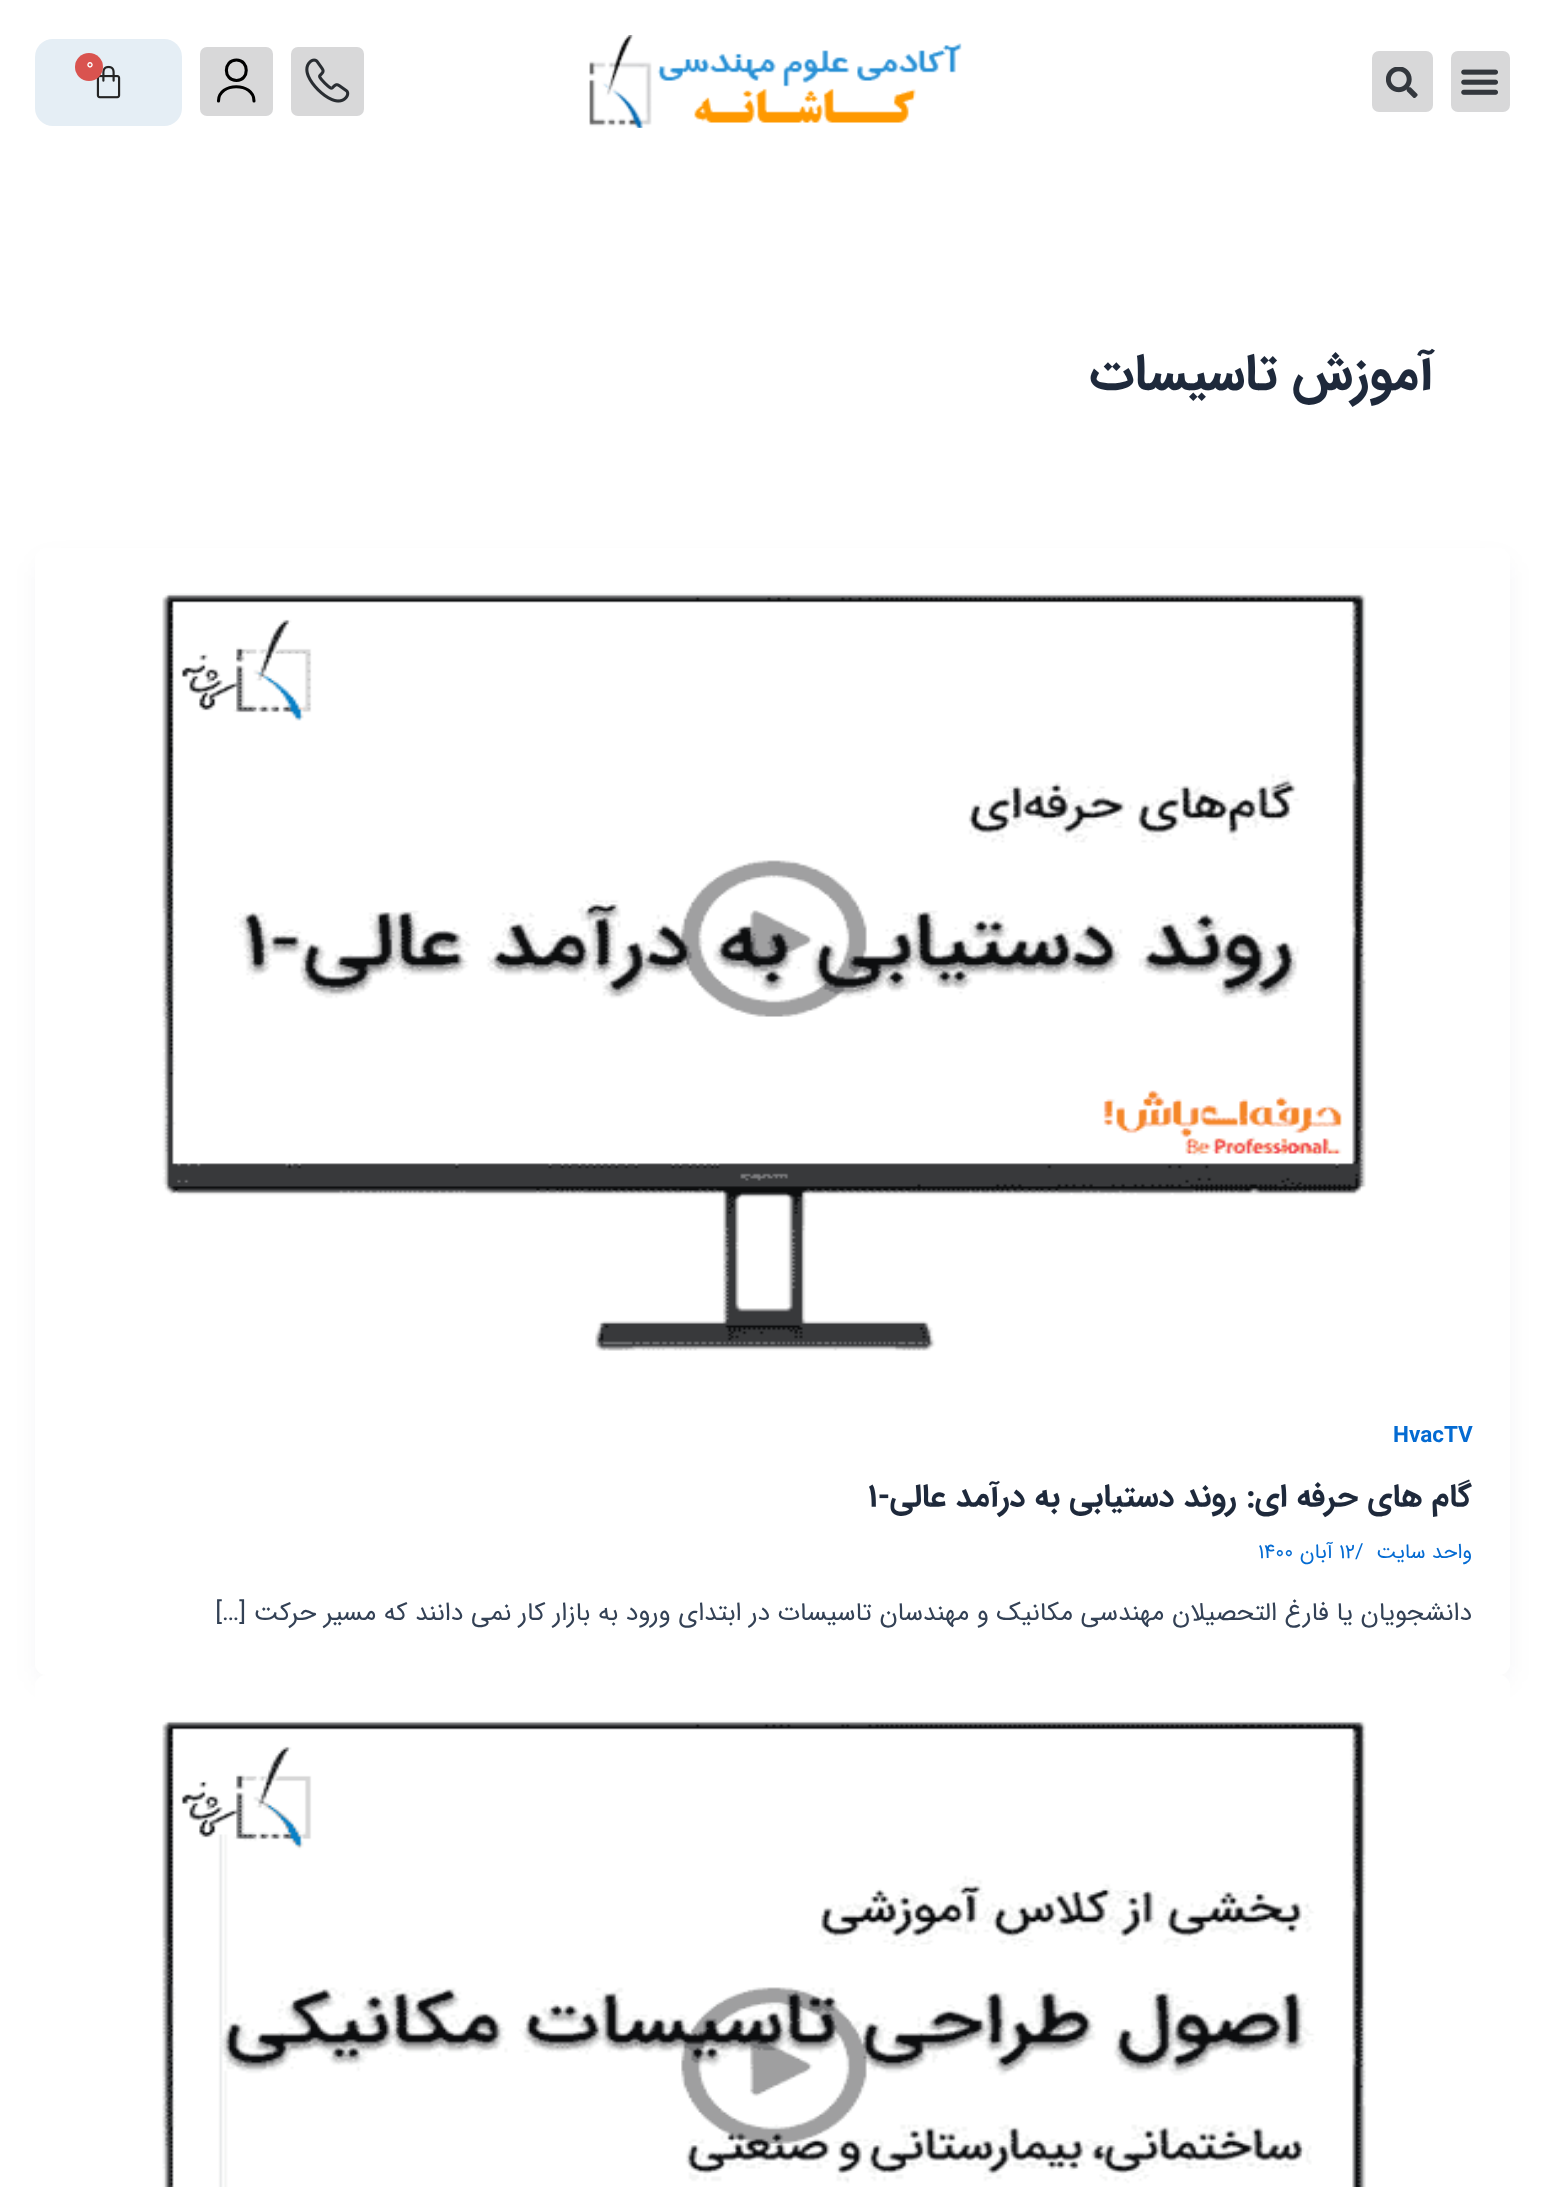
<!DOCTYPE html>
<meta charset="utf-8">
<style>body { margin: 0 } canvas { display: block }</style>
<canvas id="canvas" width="1544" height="2187"></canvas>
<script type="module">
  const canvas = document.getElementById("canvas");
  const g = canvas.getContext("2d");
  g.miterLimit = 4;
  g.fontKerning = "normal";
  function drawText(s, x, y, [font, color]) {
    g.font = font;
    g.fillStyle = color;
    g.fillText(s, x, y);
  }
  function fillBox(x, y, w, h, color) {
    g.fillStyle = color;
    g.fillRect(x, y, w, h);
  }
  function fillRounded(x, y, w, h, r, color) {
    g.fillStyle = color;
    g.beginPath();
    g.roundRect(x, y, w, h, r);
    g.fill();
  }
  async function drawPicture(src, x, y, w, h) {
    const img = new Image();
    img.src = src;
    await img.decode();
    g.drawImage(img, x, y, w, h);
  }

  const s1 = ["18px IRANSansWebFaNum", "#FFFFFF"];
  const s2 = ["bold 51px IRANSansWebFaNum", "#1E293B"];
  const s3 = ["bold 22.5px IRANSansWebFaNum", "#046BD2"];
  const s4 = ["bold 31.9px IRANSansWebFaNum", "#1E293B"];
  const s5 = ["20.75px IRANSansWebFaNum", "#046BD2"];
  const s6 = ["25.55px IRANSansWebFaNum", "#334155"];

  fillBox(0, 0, 1544, 2187, "#FFFFFF");
  fillRounded(1451, 51, 59, 61, 7, "#D8D8D9");
  await drawPicture("pic1.png", 1461, 69, 37, 26);
  fillRounded(1372, 51, 61, 61, 7, "#D8D8D9");
  await drawPicture("pic2.png", 1386, 67, 32, 31);
  await drawPicture("pic3.png", 589, 35, 373, 93);
  fillRounded(291, 47, 73, 69, 7, "#D8D8D9");
  await drawPicture("pic4.png", 305, 58, 45, 45);
  fillRounded(200, 47, 73, 69, 7, "#D8D8D9");
  g.beginPath();
  g.moveTo(236.5, 80.5);
  g.bezierCurveTo(249.5, 80.5, 249.5, 60, 236.5, 60);
  g.bezierCurveTo(223, 60, 223, 80.5, 236.5, 80.5);
  g.closePath();
  g.moveTo(254, 101);
  g.bezierCurveTo(254, 82, 218.5, 82, 218.5, 101);
  g.strokeStyle = "#000000";
  g.lineWidth = 3.1;
  g.lineCap = "round";
  g.lineJoin = "round";
  g.stroke();
  fillRounded(35, 39, 147, 87, 18, "#E5EEF5");
  await drawPicture("pic5.png", 96, 65, 25, 34);
  g.fillStyle = "#D9534F";
  g.beginPath();
  g.arc(89, 67, 14, 0, Math.PI * 2);
  g.fill();
  drawText("0", 86, 69, s1);
  g.direction = "rtl";
  drawText("آموزش تاسیسات", 1434, 389, s2);
  g.fillStyle = "rgba(16, 24, 40, 0.05)";
  g.filter = "blur(13px)";
  g.beginPath();
  g.roundRect(39, 562, 1468, 1120, 7);
  g.fill();
  g.filter = "none";
  fillRounded(35, 548, 1475, 1127, 11, "#FFFFFF");
  await drawPicture("pic6.png", 162, 593, 1204, 758);
  g.direction = "ltr";
  drawText("HvacTV", 1393, 1442, s3);
  g.direction = "rtl";
  drawText("گام های حرفه ای: روند دستیابی به درآمد عالی-", 1472, 1506, s4);
  g.direction = "ltr";
  drawText("1", 868, 1506, s4);
  g.direction = "rtl";
  drawText("واحد سایت", 1472, 1558, s5);
  g.direction = "ltr";
  drawText("/", 1355, 1558, s5);
  drawText("12", 1339, 1558, s5);
  g.direction = "rtl";
  drawText("آبان", 1333, 1558, s5);
  g.direction = "ltr";
  drawText("1400", 1258, 1558, s5);
  g.direction = "rtl";
  drawText("دانشجویان یا فارغ التحصیلان مهندسی مکانیک و مهندسان تاسیسات در ابتدای ورود به بازار کار نمی دانند که مسیر حرکت […]", 1472, 1620, s6);
  fillRounded(35, 1675, 1475, 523, 11, "#FFFFFF");
  await drawPicture("pic7.png", 162, 1720, 1204, 467);
</script>
